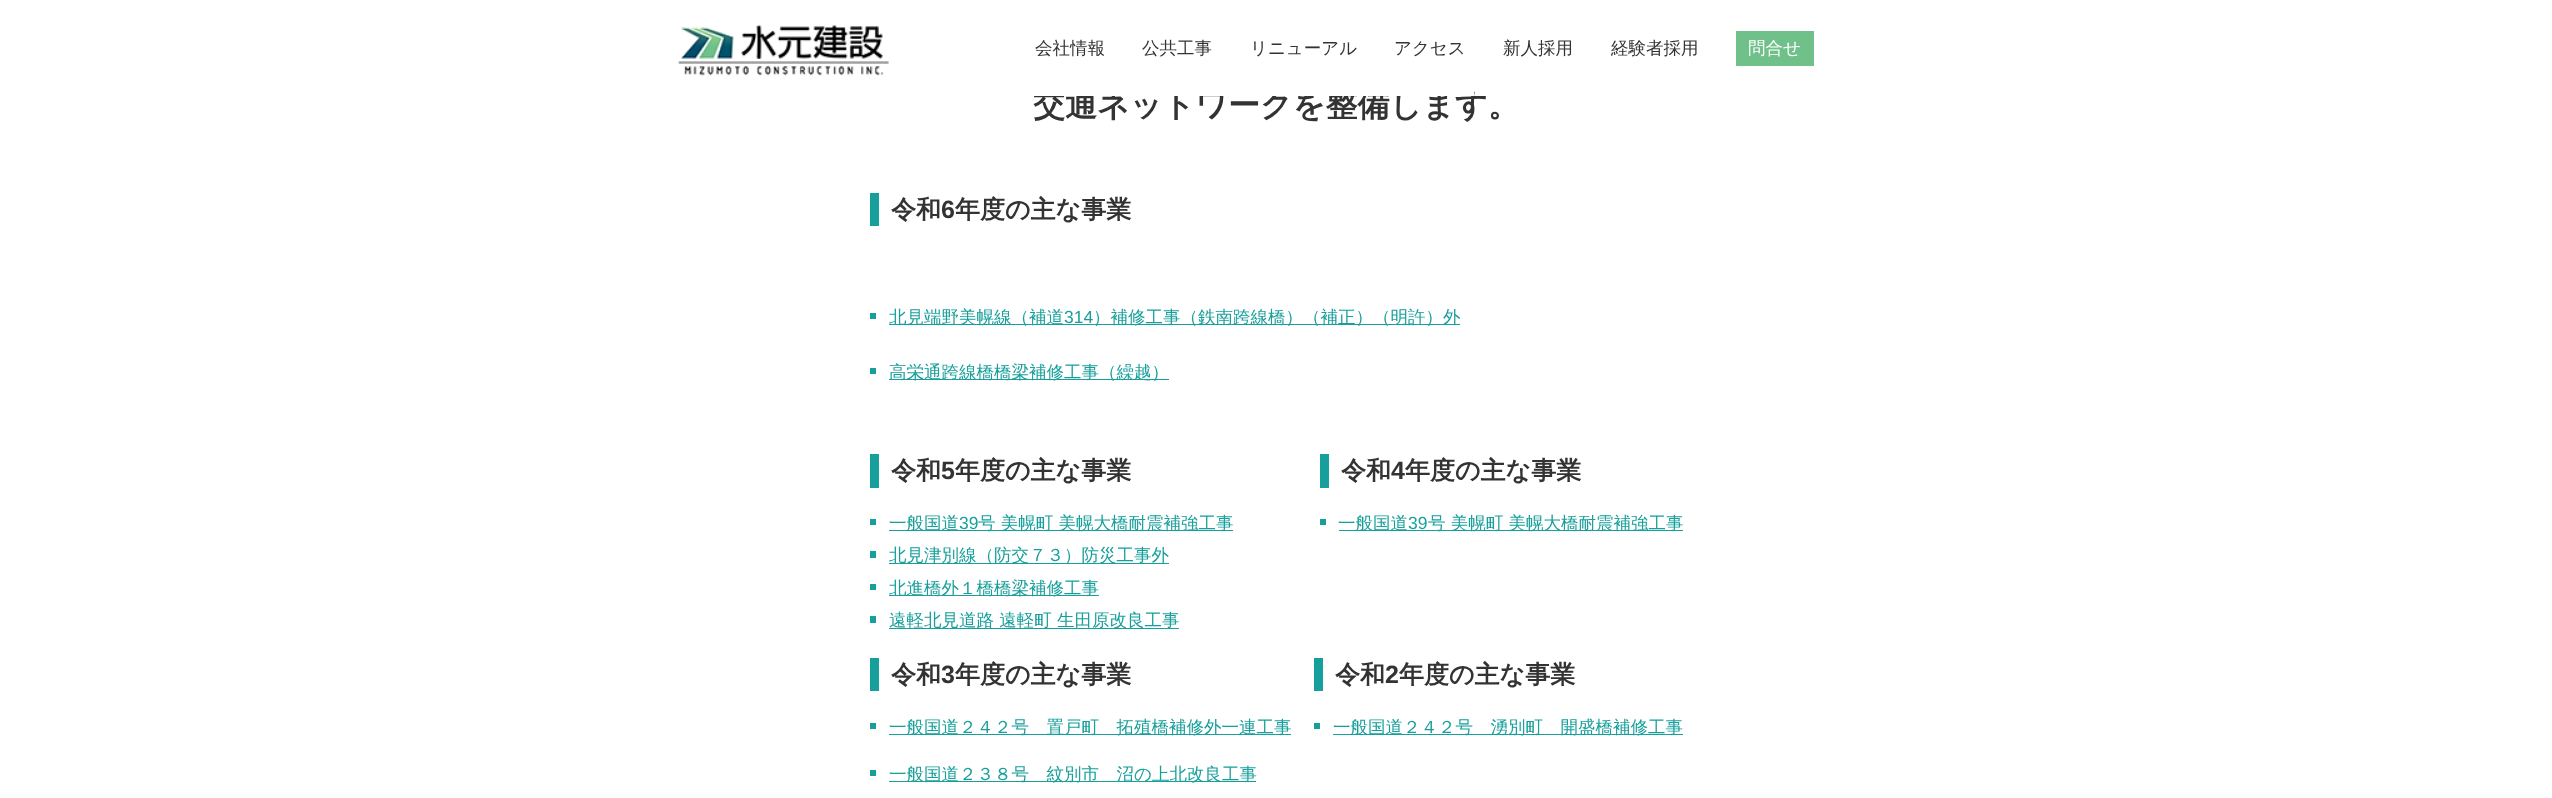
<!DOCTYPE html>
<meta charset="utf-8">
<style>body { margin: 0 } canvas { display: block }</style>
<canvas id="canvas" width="2552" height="798"></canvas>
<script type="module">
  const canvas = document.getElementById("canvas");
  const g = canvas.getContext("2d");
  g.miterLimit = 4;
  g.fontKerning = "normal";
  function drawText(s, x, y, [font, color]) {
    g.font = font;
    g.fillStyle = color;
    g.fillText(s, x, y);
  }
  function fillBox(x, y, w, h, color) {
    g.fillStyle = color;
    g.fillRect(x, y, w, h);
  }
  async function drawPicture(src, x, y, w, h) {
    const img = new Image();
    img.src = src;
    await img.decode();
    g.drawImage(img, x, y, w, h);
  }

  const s1 = ["bold 32px WenQuanYi Zen Hei", "#333333"];
  const s2 = ["500 17.5px WenQuanYi Zen Hei", "#333333"];
  const s3 = ["500 17.5px WenQuanYi Zen Hei", "#FFFFFF"];
  const s4 = ["bold 25px WenQuanYi Zen Hei", "#333333"];
  const s5 = ["bold 25px Liberation Sans", "#333333"];
  const s6 = ["500 17.5px WenQuanYi Zen Hei", "#17A09B"];
  const s7 = ["17.5px Liberation Sans", "#17A09B"];

  fillBox(0, 0, 2552, 798, "#FFFFFF");
  drawText("交通ネットワークを整備します。", 1033, 116, s1);
  fillBox(1034, 88, 440, 8, "#FFFFFF");
  await drawPicture("pic1.png", 678, 24, 211, 52);
  drawText("会社情報", 1035, 54, s2);
  drawText("公共工事", 1142, 54, s2);
  drawText("リニューアル", 1250, 54, s2);
  drawText("アクセス", 1394, 54, s2);
  drawText("新人採用", 1503, 54, s2);
  drawText("経験者採用", 1611, 54, s2);
  fillBox(1736, 31, 78, 35, "#70C08A");
  drawText("問合せ", 1748, 54, s3);
  fillBox(870, 193, 9, 33, "#17A09B");
  drawText("令和", 891, 218, s4);
  drawText("6", 941, 218, s5);
  drawText("年度の主な事業", 955, 218, s4);
  fillBox(870, 313, 6, 6, "#17A09B");
  fillBox(889, 324, 571, 1, "#17A09B");
  drawText("北見端野美幌線（補道", 889, 323, s6);
  drawText("314", 1064, 323, s7);
  drawText("）補修工事（鉄南跨線橋）（補正）（明許）外", 1093, 323, s6);
  fillBox(870, 368, 6, 6, "#17A09B");
  fillBox(889, 379, 280, 1, "#17A09B");
  drawText("高栄通跨線橋橋梁補修工事（繰越）", 889, 378, s6);
  fillBox(870, 454, 9, 34, "#17A09B");
  drawText("令和", 891, 479, s4);
  drawText("5", 941, 479, s5);
  drawText("年度の主な事業", 955, 479, s4);
  fillBox(870, 519, 6, 6, "#17A09B");
  fillBox(889, 530, 344, 1, "#17A09B");
  drawText("一般国道", 889, 529, s6);
  drawText("39", 959, 529, s7);
  drawText("号 美幌町 美幌大橋耐震補強工事", 978, 529, s6);
  fillBox(870, 551, 6, 7, "#17A09B");
  fillBox(889, 563, 280, 1, "#17A09B");
  drawText("北見津別線（防交７３）防災工事外", 889, 561, s6);
  fillBox(870, 584, 6, 6, "#17A09B");
  fillBox(889, 595, 210, 1, "#17A09B");
  drawText("北進橋外１橋橋梁補修工事", 889, 594, s6);
  fillBox(870, 616, 6, 7, "#17A09B");
  fillBox(889, 628, 290, 1, "#17A09B");
  drawText("遠軽北見道路 遠軽町 生田原改良工事", 889, 626, s6);
  fillBox(1320, 454, 9, 34, "#17A09B");
  drawText("令和", 1341, 479, s4);
  drawText("4", 1391, 479, s5);
  drawText("年度の主な事業", 1405, 479, s4);
  fillBox(1320, 519, 6, 6, "#17A09B");
  fillBox(1339, 530, 344, 1, "#17A09B");
  drawText("一般国道", 1338, 529, s6);
  drawText("39", 1408, 529, s7);
  drawText("号 美幌町 美幌大橋耐震補強工事", 1428, 529, s6);
  fillBox(870, 658, 9, 33, "#17A09B");
  drawText("令和", 891, 683, s4);
  drawText("3", 941, 683, s5);
  drawText("年度の主な事業", 955, 683, s4);
  fillBox(870, 723, 6, 6, "#17A09B");
  fillBox(889, 734, 402, 1, "#17A09B");
  drawText("一般国道２４２号　置戸町　拓殖橋補修外一連工事", 889, 733, s6);
  fillBox(870, 770, 6, 6, "#17A09B");
  fillBox(889, 781, 367, 1, "#17A09B");
  drawText("一般国道２３８号　紋別市　沼の上北改良工事", 889, 780, s6);
  fillBox(1314, 658, 9, 33, "#17A09B");
  drawText("令和", 1335, 683, s4);
  drawText("2", 1385, 683, s5);
  drawText("年度の主な事業", 1399, 683, s4);
  fillBox(1314, 723, 6, 6, "#17A09B");
  fillBox(1333, 734, 350, 1, "#17A09B");
  drawText("一般国道２４２号　湧別町　開盛橋補修工事", 1333, 733, s6);
</script>
